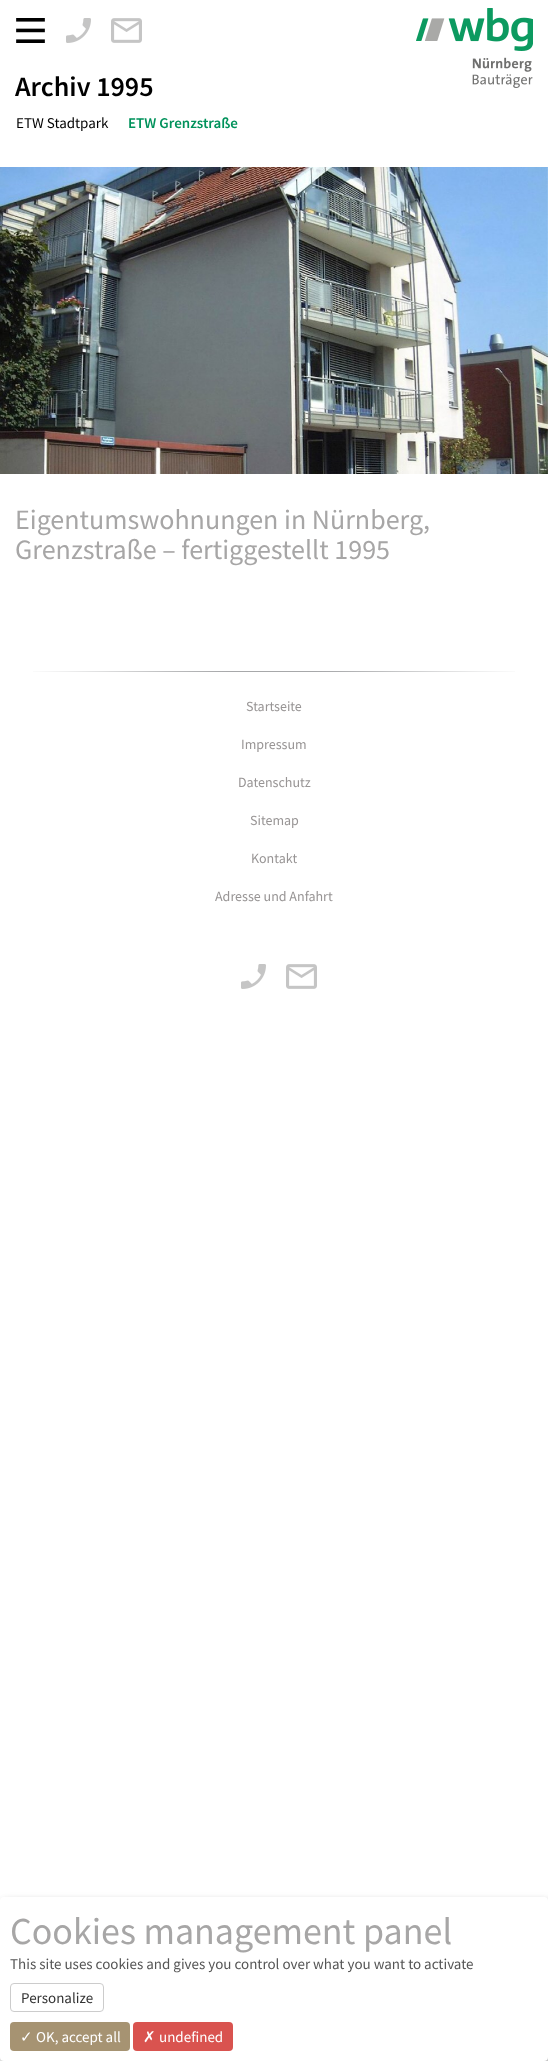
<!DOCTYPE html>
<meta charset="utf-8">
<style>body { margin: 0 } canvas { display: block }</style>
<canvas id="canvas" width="548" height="2061"></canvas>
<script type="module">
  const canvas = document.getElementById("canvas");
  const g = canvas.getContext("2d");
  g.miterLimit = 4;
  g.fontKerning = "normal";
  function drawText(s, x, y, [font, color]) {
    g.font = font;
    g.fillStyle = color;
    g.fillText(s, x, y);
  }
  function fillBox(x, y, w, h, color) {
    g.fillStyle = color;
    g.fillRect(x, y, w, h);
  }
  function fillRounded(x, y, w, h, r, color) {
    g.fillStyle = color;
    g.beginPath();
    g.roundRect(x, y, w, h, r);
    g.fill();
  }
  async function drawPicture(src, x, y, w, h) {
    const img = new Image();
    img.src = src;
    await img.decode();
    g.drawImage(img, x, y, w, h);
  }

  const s1 = ["600 28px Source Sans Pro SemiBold", "#000000"];
  const s2 = ["15px Source Sans Pro", "#000000"];
  const s3 = ["600 15px Source Sans Pro SemiBold", "#00925B"];
  const s4 = ["28px Source Sans Pro", "#A7A6A6"];
  const s5 = ["14px Source Sans Pro", "#989595"];
  const s6 = ["38px Source Sans Pro", "#A7A6A6"];
  const s7 = ["15px Source Sans Pro", "#555555"];
  const s8 = ["15px Source Sans Pro", "#333333"];
  const s9 = ["15px DejaVu Sans", "#FFFFFF"];
  const s10 = ["15px Source Sans Pro", "#FFFFFF"];

  fillBox(0, 0, 548, 2061, "#FFFFFF");
  await drawPicture("pic1.png", 16, 18, 29, 25);
  await drawPicture("pic2.png", 66, 18, 25, 25);
  await drawPicture("pic3.png", 111, 18, 31, 25);
  drawText("Archiv 1995", 15, 96, s1);
  await drawPicture("pic4.png", 416, 8, 117, 80);
  drawText("ETW Stadtpark", 16, 128, s2);
  drawText("ETW Grenzstraße", 128, 128, s3);
  await drawPicture("pic5.png", 0, 167, 548, 307);
  drawText("Eigentumswohnungen in Nürnberg,", 15, 529, s4);
  drawText("Grenzstraße – fertiggestellt 1995", 15, 559, s4);
  await drawPicture("pic6.png", 33, 671, 482, 1);
  drawText("Startseite", 246, 711, s5);
  drawText("Impressum", 241, 749, s5);
  drawText("Datenschutz", 238, 787, s5);
  drawText("Sitemap", 250, 825, s5);
  drawText("Kontakt", 251, 863, s5);
  drawText("Adresse und Anfahrt", 215, 901, s5);
  await drawPicture("pic2.png", 241, 964, 25, 25);
  await drawPicture("pic3.png", 286, 964, 31, 25);
  g.fillStyle = "rgba(0, 0, 0, 0.19)";
  g.filter = "blur(5px)";
  g.beginPath();
  g.roundRect(5, 1902, 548, 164, 4);
  g.fill();
  g.filter = "none";
  g.fillStyle = "rgba(0, 0, 0, 0.2)";
  g.filter = "blur(3px)";
  g.beginPath();
  g.roundRect(0, 1901, 548, 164, 4);
  g.fill();
  g.filter = "none";
  fillRounded(0, 1897, 548, 164, 4, "#FFFFFF");
  drawText("Cookies management panel", 10, 1944, s6);
  drawText("This site uses cookies and gives you control over what you want to activate", 10, 1969, s7);
  g.beginPath();
  g.roundRect(10.5, 1983.5, 93, 28, 3.5);
  g.strokeStyle = "#CCCCCC";
  g.stroke();
  drawText("Personalize", 21, 2003, s8);
  fillRounded(10, 2022, 120, 29, 4, "#A69372");
  drawText("✓", 20, 2042, s9);
  drawText("OK, accept all", 36, 2042, s10);
  fillRounded(133, 2022, 100, 29, 4, "#D9534F");
  drawText("✗", 143, 2042, s9);
  drawText("undefined", 159, 2042, s10);
</script>
